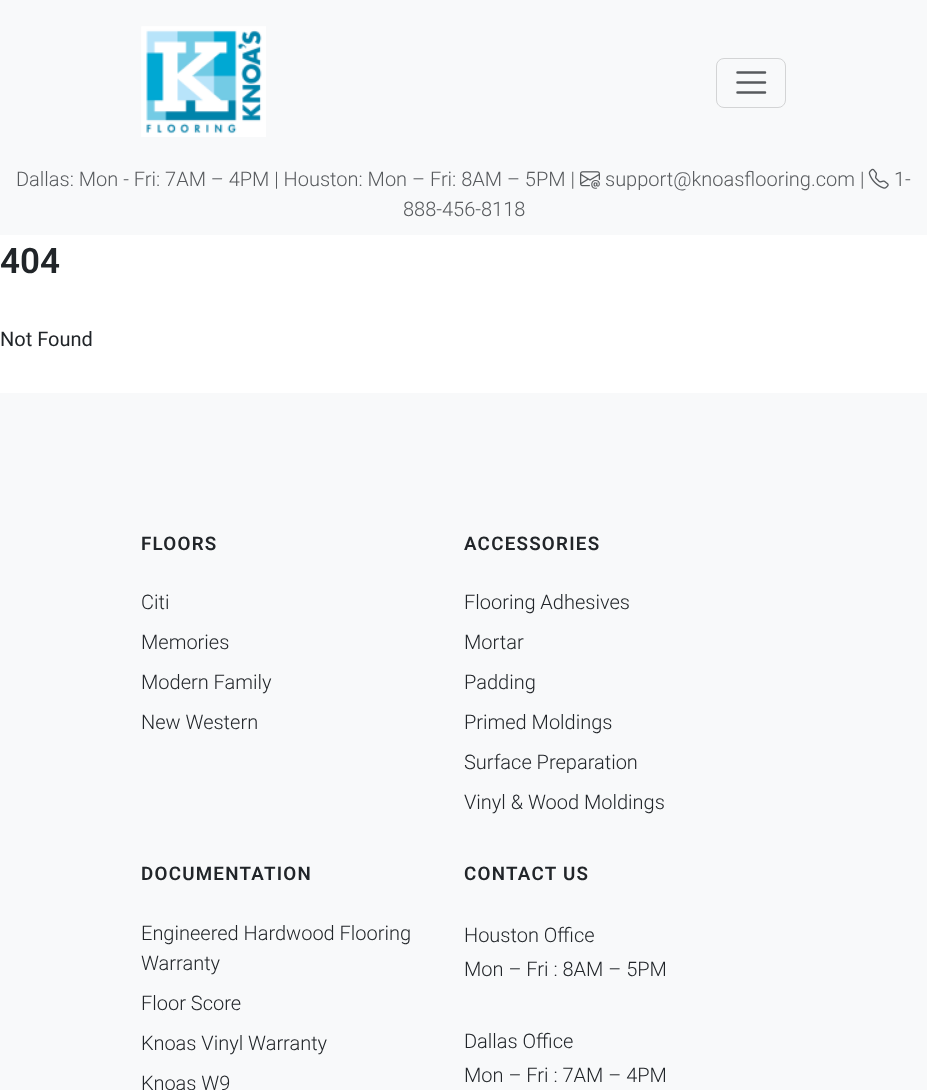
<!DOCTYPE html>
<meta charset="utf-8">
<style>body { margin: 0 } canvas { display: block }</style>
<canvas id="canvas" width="927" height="1090"></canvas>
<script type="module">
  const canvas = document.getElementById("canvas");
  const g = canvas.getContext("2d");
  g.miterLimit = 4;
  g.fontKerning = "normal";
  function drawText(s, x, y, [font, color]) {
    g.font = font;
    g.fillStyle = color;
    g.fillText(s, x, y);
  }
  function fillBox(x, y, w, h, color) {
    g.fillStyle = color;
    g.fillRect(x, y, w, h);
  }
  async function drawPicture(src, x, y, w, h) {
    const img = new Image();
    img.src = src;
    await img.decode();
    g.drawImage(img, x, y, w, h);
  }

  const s1 = ["300 20px Roboto", "#575A5D"];
  const s2 = ["600 35px Roboto", "#212529"];
  const s3 = ["20px Roboto", "#212529"];
  const s4 = ["600 18.75px Roboto", "#212529"];
  const s5 = ["300 20px Roboto", "#212529"];

  fillBox(0, 0, 927, 1090, "#FFFFFF");
  fillBox(0, 0, 927, 235, "#F8F9FA");
  await drawPicture("pic1.png", 141, 26, 125, 111);
  g.beginPath();
  g.roundRect(716.5, 58.5, 69, 49, 7.5);
  g.strokeStyle = "#D3D4D5";
  g.stroke();
  g.beginPath();
  g.moveTo(737.5, 72.5);
  g.lineTo(765, 72.5);
  g.moveTo(737.5, 82.5);
  g.lineTo(765, 82.5);
  g.moveTo(737.5, 92.5);
  g.lineTo(765, 92.5);
  g.strokeStyle = "#575A5D";
  g.lineWidth = 2.5;
  g.lineCap = "round";
  g.stroke();
  drawText("Dallas: Mon - Fri: 7AM – 4PM | Houston: Mon – Fri: 8AM – 5PM |", 16, 186, s1);
  await drawPicture("pic2.png", 580, 171, 20, 18);
  drawText("support@knoasflooring.com |", 605, 186, s1);
  await drawPicture("pic3.png", 868, 168, 21, 21);
  drawText("1-", 894, 186, s1);
  drawText("888-456-8118", 403, 216, s1);
  drawText("404", 0, 273, s2);
  drawText("Not Found", 0, 346, s3);
  fillBox(0, 393, 927, 697, "#F8F9FA");
  g.letterSpacing = "1.25px";
  drawText("FLOORS", 141, 550, s4);
  g.letterSpacing = "0px";
  drawText("Citi", 141, 609, s5);
  drawText("Memories", 141, 649, s5);
  drawText("Modern Family", 141, 689, s5);
  drawText("New Western", 141, 729, s5);
  g.letterSpacing = "1.25px";
  drawText("ACCESSORIES", 464, 550, s4);
  g.letterSpacing = "0px";
  drawText("Flooring Adhesives", 464, 609, s5);
  drawText("Mortar", 464, 649, s5);
  drawText("Padding", 464, 689, s5);
  drawText("Primed Moldings", 464, 729, s5);
  drawText("Surface Preparation", 464, 769, s5);
  drawText("Vinyl & Wood Moldings", 464, 809, s5);
  g.letterSpacing = "1.25px";
  drawText("DOCUMENTATION", 141, 880, s4);
  g.letterSpacing = "0px";
  drawText("Engineered Hardwood Flooring", 141, 940, s5);
  drawText("Warranty", 141, 970, s5);
  drawText("Floor Score", 141, 1010, s5);
  drawText("Knoas Vinyl Warranty", 141, 1050, s5);
  drawText("Knoas W9", 141, 1090, s5);
  g.letterSpacing = "1.25px";
  drawText("CONTACT US", 464, 880, s4);
  g.letterSpacing = "0px";
  drawText("Houston Office", 464, 942, s5);
  drawText("Mon – Fri : 8AM – 5PM", 464, 976, s5);
  drawText("Dallas Office", 464, 1048, s5);
  drawText("Mon – Fri : 7AM – 4PM", 464, 1082, s5);
</script>
